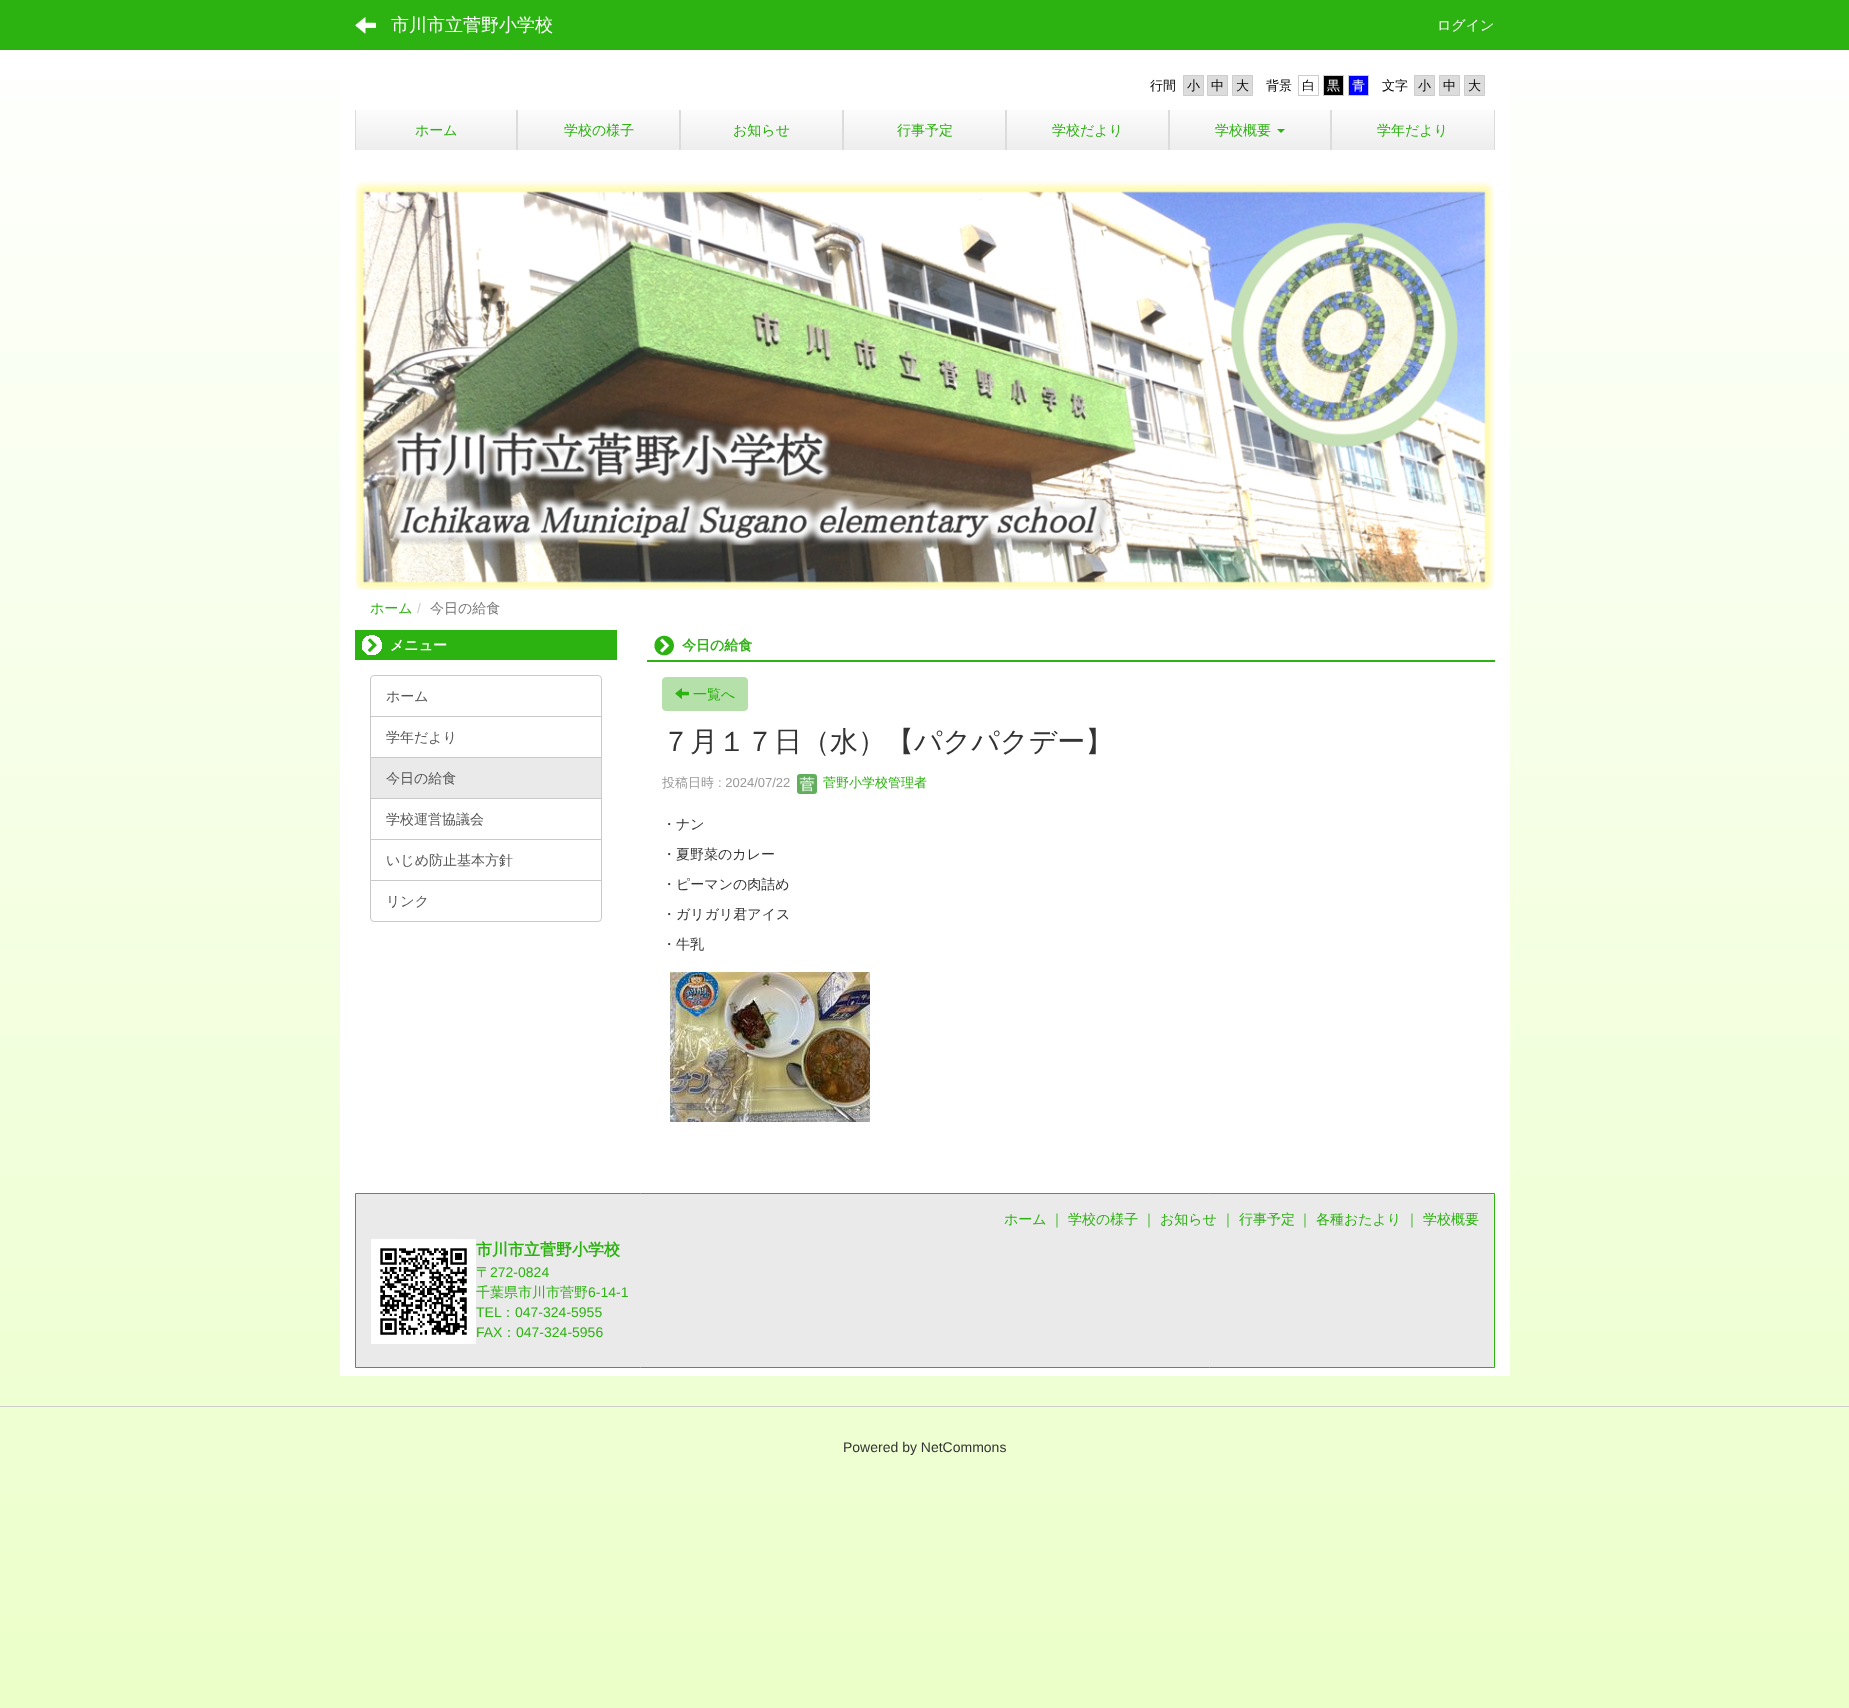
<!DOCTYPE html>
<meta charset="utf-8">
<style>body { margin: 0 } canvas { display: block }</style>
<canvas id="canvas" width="1849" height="1708"></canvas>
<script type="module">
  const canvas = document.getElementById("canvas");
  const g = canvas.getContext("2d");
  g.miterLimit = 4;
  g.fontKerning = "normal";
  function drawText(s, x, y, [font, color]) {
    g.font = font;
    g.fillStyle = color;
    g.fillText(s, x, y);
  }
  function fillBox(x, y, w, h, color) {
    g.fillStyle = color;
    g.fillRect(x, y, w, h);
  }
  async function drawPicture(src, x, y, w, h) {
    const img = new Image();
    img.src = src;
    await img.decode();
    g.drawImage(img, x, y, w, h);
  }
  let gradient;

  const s1 = ["500 18px WenQuanYi Zen Hei", "#FFFFFF"];
  const s2 = ["500 14px WenQuanYi Zen Hei", "#FFFFFF"];
  const s3 = ["500 13px WenQuanYi Zen Hei", "#000000"];
  const s4 = ["500 13px WenQuanYi Zen Hei", "#FFFFFF"];
  const s5 = ["500 14px WenQuanYi Zen Hei", "#2CB211"];
  const s6 = ["14px Liberation Sans", "#CCCCCC"];
  const s7 = ["500 14px WenQuanYi Zen Hei", "#777777"];
  const s8 = ["bold 14px WenQuanYi Zen Hei", "#FFFFFF"];
  const s9 = ["500 14px WenQuanYi Zen Hei", "#555555"];
  const s10 = ["bold 14px WenQuanYi Zen Hei", "#2CB211"];
  const s11 = ["500 28px WenQuanYi Zen Hei", "#333333"];
  const s12 = ["500 13px WenQuanYi Zen Hei", "#999999"];
  const s13 = ["13px Liberation Sans", "#999999"];
  const s14 = ["500 13px WenQuanYi Zen Hei", "#2CB211"];
  const s15 = ["500 14px WenQuanYi Zen Hei", "#333333"];
  const s16 = ["bold 16px WenQuanYi Zen Hei", "#2CB211"];
  const s17 = ["14px Liberation Sans", "#2CB211"];
  const s18 = ["14px Liberation Sans", "#333333"];

  fillBox(0, 0, 1849, 1708, "#FFFFFF");
  gradient = g.createLinearGradient(925, 1708, 925, 0);
  gradient.addColorStop(0, "#EBFFC9");
  gradient.addColorStop(1, "#FFFFFF");
  g.fillStyle = gradient;
  g.fillRect(0, 79, 1849, 1629);
  fillBox(0, 0, 1849, 50, "#2CB211");
  await drawPicture("pic1.png", 355, 17, 21, 17);
  drawText("市川市立菅野小学校", 391, 31, s1);
  drawText("ログイン", 1437, 30, s2);
  fillBox(340, 79, 1170, 1297, "#FFFFFF");
  drawText("行間", 1150, 90, s3);
  g.fillStyle = "#DCDCDC";
  g.beginPath();
  g.rect(1183.5, 75.5, 20, 20);
  g.fill();
  g.strokeStyle = "#CDCDCD";
  g.stroke();
  drawText("小", 1187, 90, s3);
  g.fillStyle = "#DCDCDC";
  g.beginPath();
  g.rect(1207.5, 75.5, 20, 20);
  g.fill();
  g.stroke();
  drawText("中", 1211, 90, s3);
  g.fillStyle = "#DCDCDC";
  g.beginPath();
  g.rect(1232.5, 75.5, 20, 20);
  g.fill();
  g.stroke();
  drawText("大", 1236, 90, s3);
  drawText("背景", 1266, 90, s3);
  g.strokeRect(1298.5, 75.5, 20, 20);
  drawText("白", 1302, 90, s3);
  g.beginPath();
  g.rect(1323.5, 75.5, 20, 20);
  g.fill();
  g.stroke();
  drawText("黒", 1327, 90, s4);
  g.fillStyle = "#0000FF";
  g.beginPath();
  g.rect(1348.5, 75.5, 20, 20);
  g.fill();
  g.stroke();
  drawText("青", 1352, 90, s4);
  drawText("文字", 1382, 90, s3);
  g.fillStyle = "#DCDCDC";
  g.beginPath();
  g.rect(1414.5, 75.5, 20, 20);
  g.fill();
  g.stroke();
  drawText("小", 1418, 90, s3);
  g.fillStyle = "#DCDCDC";
  g.beginPath();
  g.rect(1439.5, 75.5, 20, 20);
  g.fill();
  g.stroke();
  drawText("中", 1443, 90, s3);
  g.fillStyle = "#DCDCDC";
  g.beginPath();
  g.rect(1464.5, 75.5, 20, 20);
  g.fill();
  g.stroke();
  drawText("大", 1468, 90, s3);
  gradient = g.createLinearGradient(436, 110, 436, 150);
  gradient.addColorStop(0, "#FCFCFC");
  gradient.addColorStop(1, "#EDEDED");
  g.fillStyle = gradient;
  g.fillRect(356, 110, 160, 40);
  fillBox(516, 110, 2, 40, "#DCDCDC");
  fillBox(355, 110, 1, 40, "#DCDCDC");
  drawText("ホーム", 415, 135, s5);
  gradient = g.createLinearGradient(599, 110, 599, 150);
  gradient.addColorStop(0, "#FCFCFC");
  gradient.addColorStop(1, "#EDEDED");
  g.fillStyle = gradient;
  g.fillRect(518, 110, 161, 40);
  fillBox(679, 110, 2, 40, "#DCDCDC");
  drawText("学校の様子", 564, 135, s5);
  gradient = g.createLinearGradient(762, 110, 762, 150);
  gradient.addColorStop(0, "#FCFCFC");
  gradient.addColorStop(1, "#EDEDED");
  g.fillStyle = gradient;
  g.fillRect(681, 110, 161, 40);
  fillBox(842, 110, 2, 40, "#DCDCDC");
  drawText("お知らせ", 733, 135, s5);
  gradient = g.createLinearGradient(925, 110, 925, 150);
  gradient.addColorStop(0, "#FCFCFC");
  gradient.addColorStop(1, "#EDEDED");
  g.fillStyle = gradient;
  g.fillRect(844, 110, 161, 40);
  fillBox(1005, 110, 2, 40, "#DCDCDC");
  drawText("行事予定", 897, 135, s5);
  gradient = g.createLinearGradient(1088, 110, 1088, 150);
  gradient.addColorStop(0, "#FCFCFC");
  gradient.addColorStop(1, "#EDEDED");
  g.fillStyle = gradient;
  g.fillRect(1007, 110, 161, 40);
  fillBox(1168, 110, 2, 40, "#DCDCDC");
  drawText("学校だより", 1052, 135, s5);
  gradient = g.createLinearGradient(1250, 110, 1250, 150);
  gradient.addColorStop(0, "#FCFCFC");
  gradient.addColorStop(1, "#EDEDED");
  g.fillStyle = gradient;
  g.fillRect(1170, 110, 160, 40);
  fillBox(1330, 110, 2, 40, "#DCDCDC");
  drawText("学校概要", 1215, 135, s5);
  g.beginPath();
  g.moveTo(1277, 129);
  g.lineTo(1285, 129);
  g.lineTo(1281, 133);
  g.closePath();
  g.fill();
  gradient = g.createLinearGradient(1413, 110, 1413, 150);
  gradient.addColorStop(0, "#FCFCFC");
  gradient.addColorStop(1, "#EDEDED");
  g.fillStyle = gradient;
  g.fillRect(1332, 110, 162, 40);
  fillBox(1494, 110, 1, 40, "#DCDCDC");
  drawText("学年だより", 1377, 135, s5);
  await drawPicture("pic2.png", 355, 181, 1139, 409);
  drawText("ホーム", 370, 613, s5);
  drawText("/", 417, 613, s6);
  drawText("今日の給食", 430, 613, s7);
  fillBox(355, 630, 262, 30, "#2CB211");
  await drawPicture("pic3.png", 362, 635, 20, 20);
  drawText("メニュー", 390, 650, s8);
  g.beginPath();
  g.roundRect(370.5, 675.5, 231, 41, [3.5, 3.5, 0, 0]);
  g.strokeStyle = "#C9C9C9";
  g.stroke();
  drawText("ホーム", 386, 701, s9);
  g.strokeRect(370.5, 716.5, 231, 41);
  drawText("学年だより", 386, 742, s9);
  g.strokeRect(370.5, 798.5, 231, 41);
  g.fillStyle = "#EAEAEA";
  g.beginPath();
  g.rect(370.5, 757.5, 231, 41);
  g.fill();
  g.stroke();
  drawText("今日の給食", 386, 783, s9);
  drawText("学校運営協議会", 386, 824, s9);
  g.strokeRect(370.5, 839.5, 231, 41);
  drawText("いじめ防止基本方針", 386, 865, s9);
  g.fillStyle = "#FFFFFF";
  g.beginPath();
  g.roundRect(370.5, 880.5, 231, 41, [0, 0, 3.5, 3.5]);
  g.fill();
  g.stroke();
  drawText("リンク", 386, 906, s9);
  await drawPicture("pic4.png", 654, 635, 20, 21);
  fillBox(647, 660, 848, 2, "#2CB211");
  drawText("今日の給食", 682, 650, s10);
  g.fillStyle = "#B6E0AA";
  g.beginPath();
  g.roundRect(662.5, 677.5, 85, 33, 3.5);
  g.fill();
  g.strokeStyle = "#B6E0AA";
  g.stroke();
  await drawPicture("pic5.png", 675, 688, 14, 11);
  drawText("一覧へ", 693, 699, s5);
  drawText("７月１７日（水）【パクパクデー】", 662, 751, s11);
  drawText("投稿日時", 662, 787, s12);
  drawText(": 2024/07/22", 718, 787, s13);
  await drawPicture("pic6.png", 797, 774, 20, 20);
  drawText("菅野小学校管理者", 823, 787, s14);
  drawText("・ナン", 662, 829, s15);
  drawText("・夏野菜のカレー", 662, 859, s15);
  drawText("・ピーマンの肉詰め", 662, 889, s15);
  drawText("・ガリガリ君アイス", 662, 919, s15);
  drawText("・牛乳", 662, 949, s15);
  await drawPicture("pic7.png", 670, 972, 200, 150);
  g.fillStyle = "#EAEAEA";
  g.beginPath();
  g.rect(355.5, 1193.5, 1139, 174);
  g.fill();
  g.strokeStyle = "#2CB211";
  g.stroke();
  drawText("ホーム", 1004, 1224, s5);
  drawText("｜ 学校の様子", 1050, 1224, s5);
  drawText("｜ お知らせ", 1142, 1224, s5);
  drawText("｜ 行事予定", 1221, 1224, s5);
  drawText("｜ 各種おたより", 1298, 1224, s5);
  drawText("｜ 学校概要", 1405, 1224, s5);
  await drawPicture("pic8.png", 371, 1239, 105, 105);
  drawText("市川市立菅野小学校", 476, 1255, s16);
  drawText("〒", 476, 1277, s5);
  drawText("272-0824", 490, 1277, s17);
  drawText("千葉県市川市菅野", 476, 1297, s5);
  drawText("6-14-1", 588, 1297, s17);
  drawText("TEL", 476, 1317, s17);
  drawText("：", 501, 1317, s5);
  drawText("047-324-5955", 515, 1317, s17);
  drawText("FAX", 476, 1337, s17);
  drawText("：", 502, 1337, s5);
  drawText("047-324-5956", 516, 1337, s17);
  fillBox(0, 1406, 1849, 1, "#CCCCCC");
  drawText("Powered by NetCommons", 843, 1452, s18);
</script>
